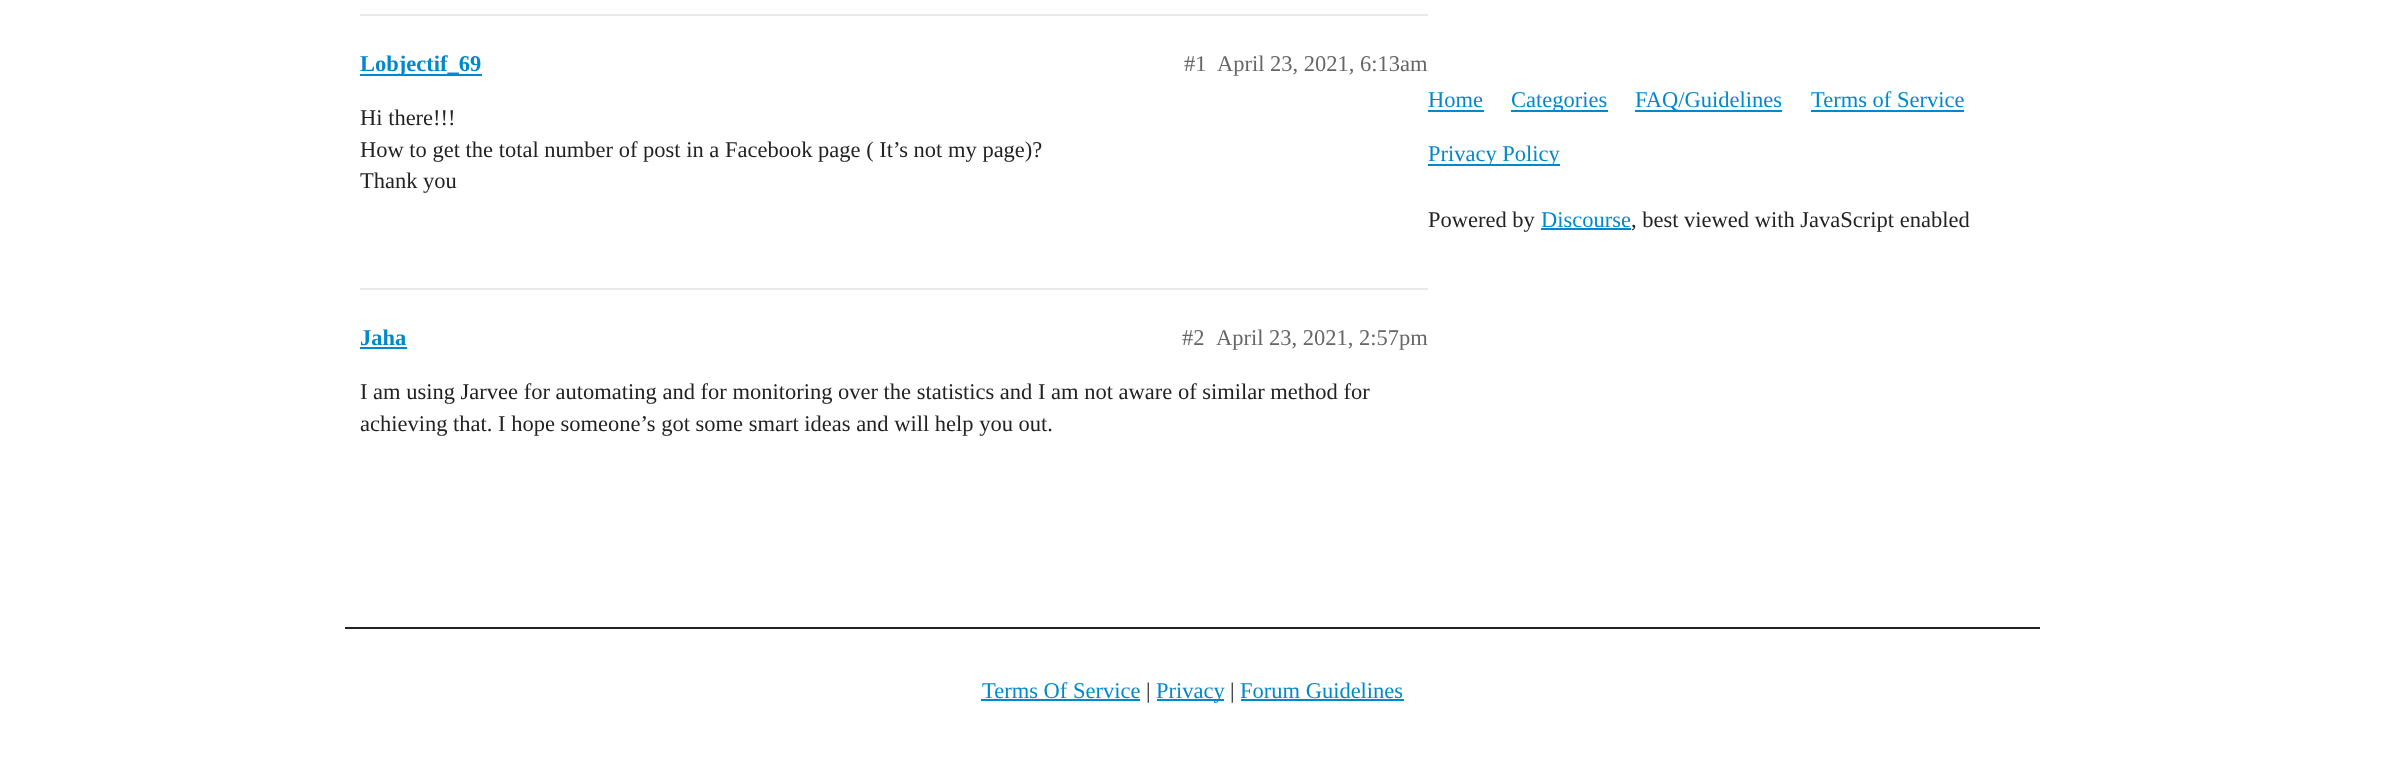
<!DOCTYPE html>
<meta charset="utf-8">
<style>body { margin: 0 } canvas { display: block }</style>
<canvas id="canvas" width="2384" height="777"></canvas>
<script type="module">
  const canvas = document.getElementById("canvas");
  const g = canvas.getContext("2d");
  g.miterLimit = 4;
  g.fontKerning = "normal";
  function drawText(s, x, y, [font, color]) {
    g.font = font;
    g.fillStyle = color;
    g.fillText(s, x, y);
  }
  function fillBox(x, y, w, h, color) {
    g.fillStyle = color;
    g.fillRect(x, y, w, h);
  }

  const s1 = ["bold 22.5px Liberation Serif", "#0088CC"];
  const s2 = ["22.5px Liberation Serif", "#666666"];
  const s3 = ["22.5px Liberation Serif", "#222222"];
  const s4 = ["22.5px Liberation Serif", "#0088CC"];

  fillBox(0, 0, 2384, 777, "#FFFFFF");
  fillBox(360, 14, 1068, 2, "#E9E9E9");
  fillBox(360, 74, 122, 2, "#0088CC");
  drawText("Lobjectif_69", 360, 71, s1);
  drawText("#1", 1184, 71, s2);
  drawText("April 23, 2021, 6:13am", 1217, 71, s2);
  drawText("Hi there!!!", 360, 125, s3);
  drawText("How to get the total number of post in a Facebook page ( It’s not my page)?", 360, 157, s3);
  drawText("Thank you", 360, 188, s3);
  fillBox(360, 288, 1068, 2, "#E9E9E9");
  drawText("Jaha", 360, 345, s1);
  fillBox(360, 347, 47, 2, "#0088CC");
  drawText("#2", 1182, 345, s2);
  drawText("April 23, 2021, 2:57pm", 1216, 345, s2);
  drawText("I am using Jarvee for automating and for monitoring over the statistics and I am not aware of similar method for", 360, 399, s3);
  drawText("achieving that. I hope someone’s got some smart ideas and will help you out.", 360, 431, s3);
  drawText("Home", 1428, 107, s4);
  fillBox(1428, 110, 56, 2, "#0088CC");
  fillBox(1511, 110, 97, 2, "#0088CC");
  drawText("Categories", 1511, 107, s4);
  fillBox(1635, 110, 147, 2, "#0088CC");
  drawText("FAQ/Guidelines", 1635, 107, s4);
  drawText("Terms of Service", 1811, 107, s4);
  fillBox(1811, 110, 153, 2, "#0088CC");
  fillBox(1428, 164, 132, 2, "#0088CC");
  drawText("Privacy Policy", 1428, 161, s4);
  drawText("Powered by", 1428, 227, s3);
  drawText("Discourse", 1541, 227, s4);
  fillBox(1541, 228, 90, 2, "#0088CC");
  drawText(", best viewed with JavaScript enabled", 1631, 227, s3);
  fillBox(345, 627, 1695, 2, "#222222");
  drawText("Terms Of Service", 982, 698, s4);
  fillBox(981, 699, 159, 2, "#0088CC");
  drawText("|", 1146, 698, s3);
  fillBox(1157, 699, 67, 2, "#0088CC");
  drawText("Privacy", 1156, 698, s4);
  drawText("|", 1230, 698, s3);
  drawText("Forum Guidelines", 1240, 698, s4);
  fillBox(1241, 699, 163, 2, "#0088CC");
</script>
